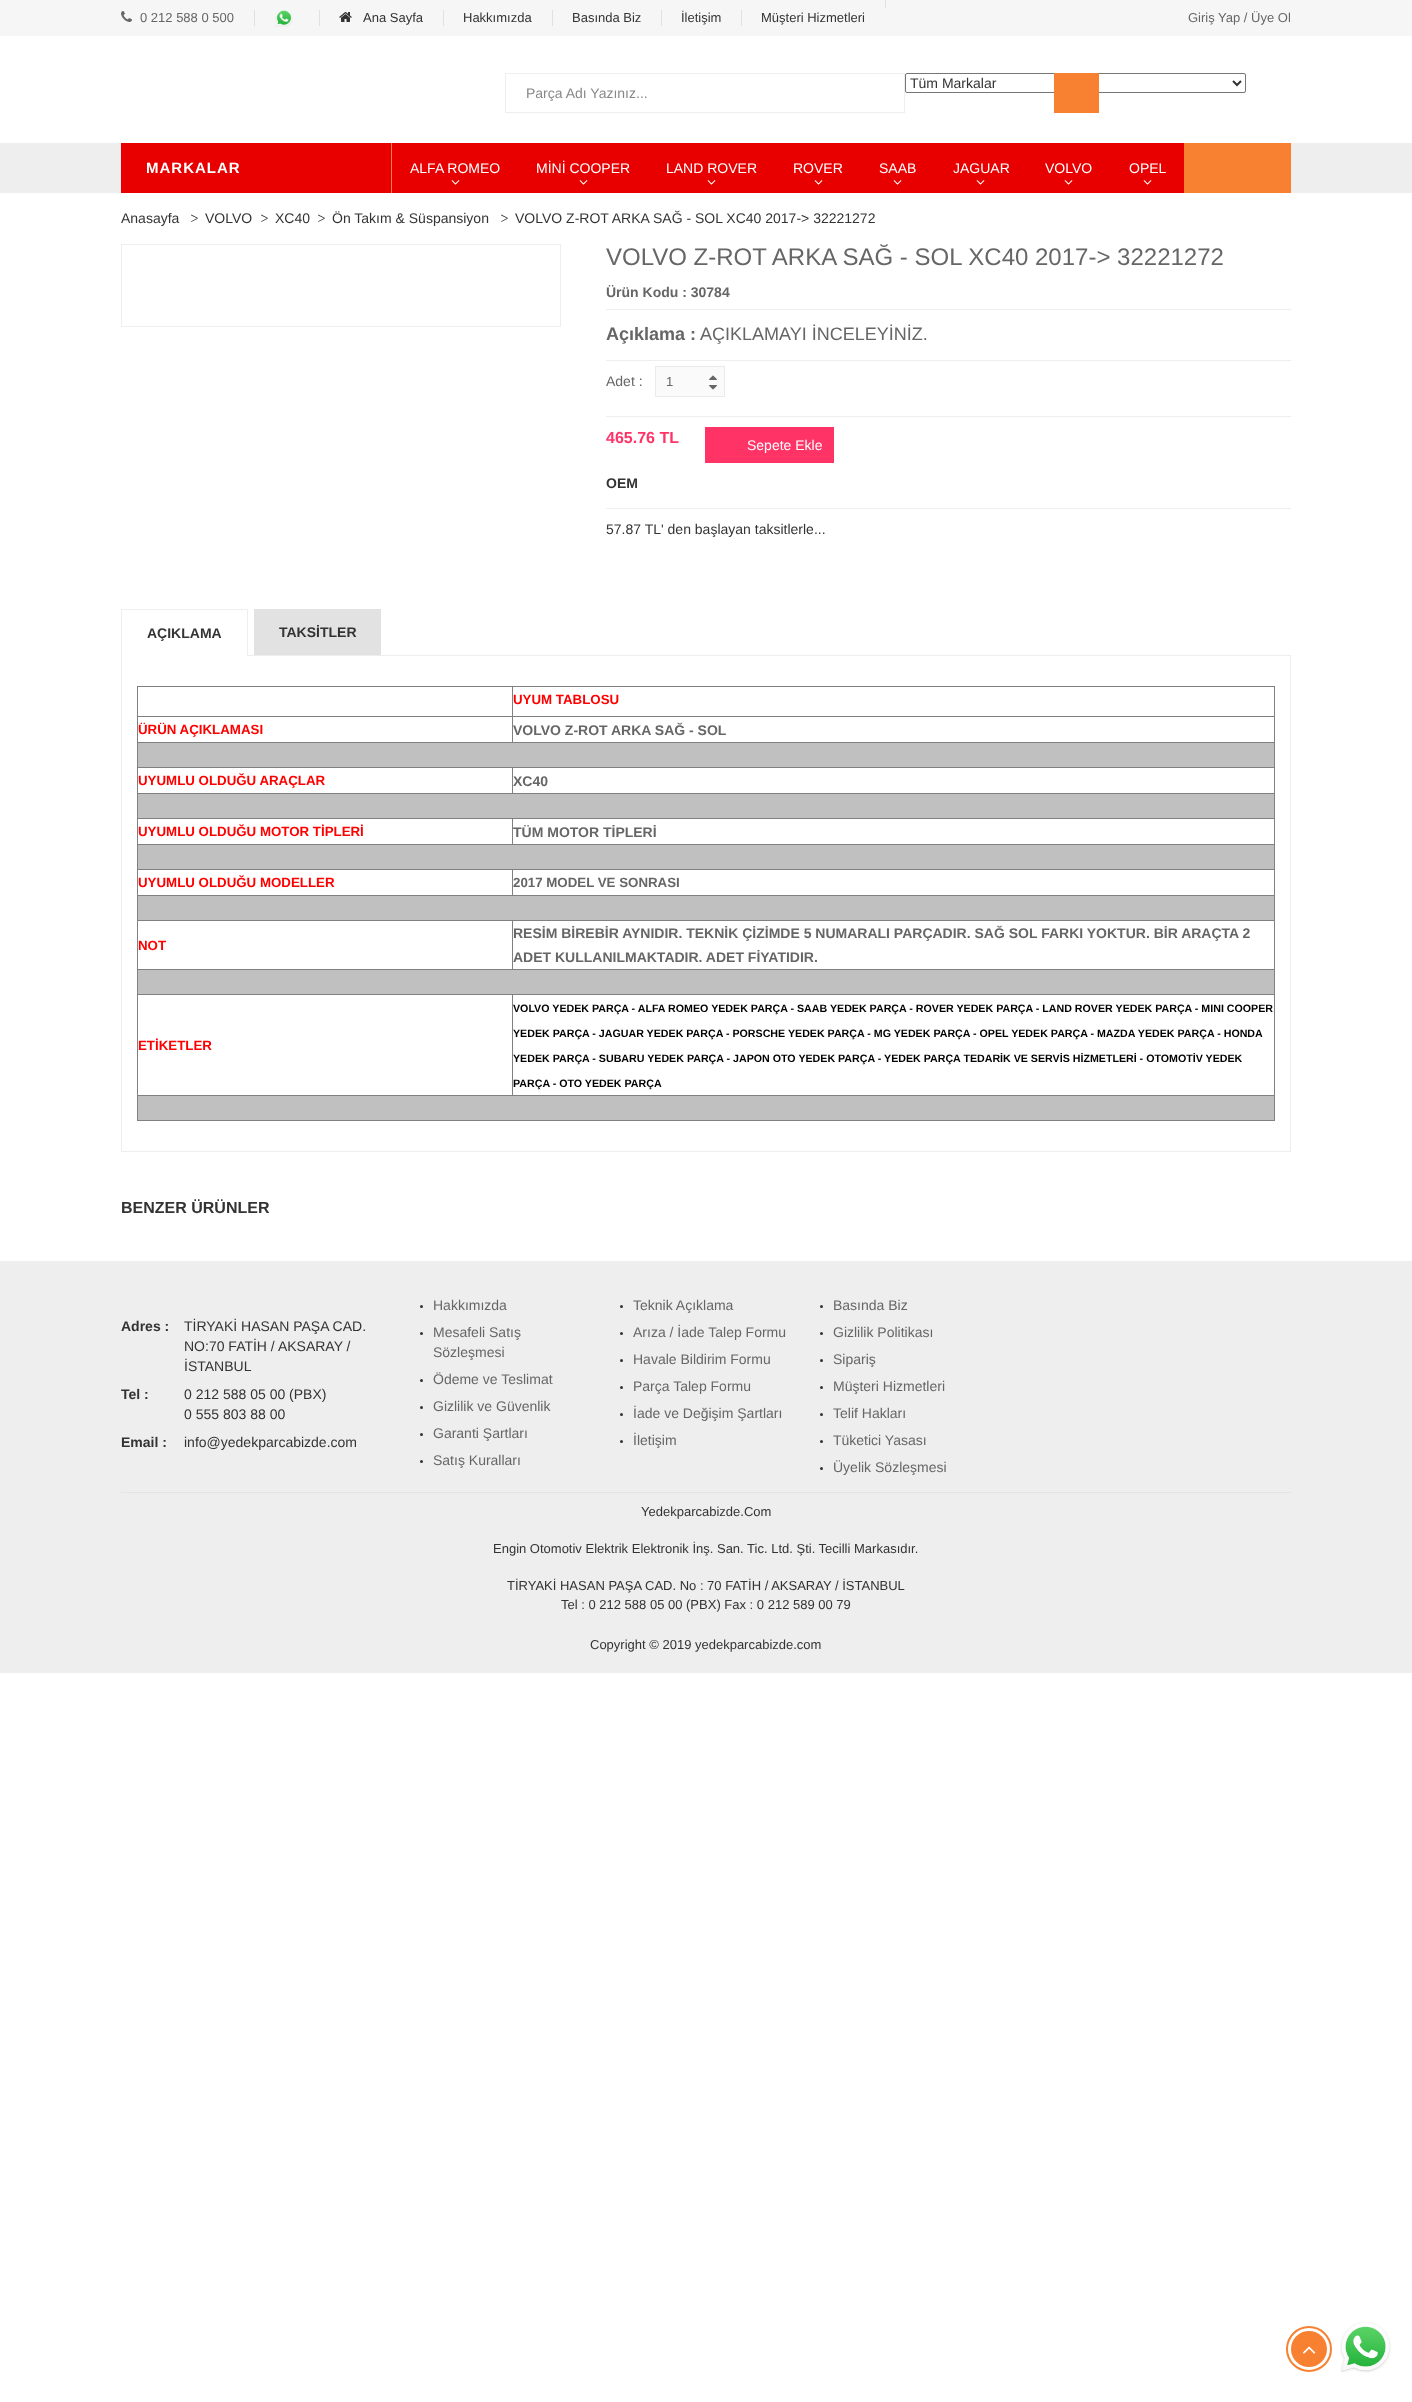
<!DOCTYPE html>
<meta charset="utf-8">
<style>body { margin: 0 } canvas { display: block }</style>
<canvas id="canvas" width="1412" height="2402"></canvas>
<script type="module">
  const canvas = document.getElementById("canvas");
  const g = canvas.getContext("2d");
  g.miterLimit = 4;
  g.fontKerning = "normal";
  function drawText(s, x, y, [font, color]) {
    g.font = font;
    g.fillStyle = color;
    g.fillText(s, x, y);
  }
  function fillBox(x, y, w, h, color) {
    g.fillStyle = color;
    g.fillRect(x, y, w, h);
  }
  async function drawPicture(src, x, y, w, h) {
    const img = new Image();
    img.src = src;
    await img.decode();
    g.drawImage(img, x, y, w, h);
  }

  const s1 = ["13px Liberation Sans", "#666666"];
  const s2 = ["13px Liberation Sans", "#333333"];
  const s3 = ["14px Liberation Sans", "#333333"];
  const s4 = ["14px Liberation Sans", "#888888"];
  const s5 = ["bold 15px Liberation Sans", "#FFFFFF"];
  const s6 = ["14px Liberation Sans", "#FFFFFF"];
  const s7 = ["14px Libre Baskerville", "#333333"];
  const s8 = ["24px Liberation Sans", "#666666"];
  const s9 = ["bold 14px Liberation Sans", "#666666"];
  const s10 = ["bold 18px Liberation Sans", "#666666"];
  const s11 = ["18px Liberation Sans", "#666666"];
  const s12 = ["14px Liberation Sans", "#666666"];
  const s13 = ["bold 16px Liberation Sans", "#FF3366"];
  const s14 = ["bold 14px Liberation Sans", "#333333"];
  const s15 = ["bold 13.3px Liberation Sans", "#FF0000"];
  const s16 = ["bold 13.3px Liberation Sans", "#666666"];
  const s17 = ["bold 10.67px Liberation Sans", "#000000"];
  const s18 = ["bold 16px Liberation Sans", "#333333"];

  fillBox(0, 0, 1412, 2402, "#FFFFFF");
  fillBox(0, 0, 1412, 36, "#F6F6F6");
  fillBox(885, 0, 1, 8, "#E0E0E0");
  await drawPicture("pic1.png", 121, 11, 11, 11);
  drawText("0 212 588 0 500", 140, 22, s1);
  fillBox(254, 10, 1, 16, "#E0E0E0");
  await drawPicture("pic2.png", 275, 10, 18, 17);
  fillBox(319, 10, 1, 16, "#E0E0E0");
  await drawPicture("pic3.png", 339, 12, 13, 10);
  drawText("Ana Sayfa", 363, 22, s2);
  fillBox(443, 10, 1, 16, "#E0E0E0");
  drawText("Hakkımızda", 463, 22, s2);
  fillBox(552, 10, 1, 16, "#E0E0E0");
  drawText("Basında Biz", 572, 22, s2);
  fillBox(661, 10, 1, 16, "#E0E0E0");
  drawText("İletişim", 681, 22, s2);
  fillBox(741, 10, 1, 16, "#E0E0E0");
  drawText("Müşteri Hizmetleri", 761, 22, s2);
  drawText("Giriş Yap / Üye Ol", 1188, 22, s1);
  g.beginPath();
  g.roundRect(905.5, 73.5, 340, 19, 1.5);
  g.strokeStyle = "#767676";
  g.stroke();
  g.beginPath();
  g.moveTo(1233, 81);
  g.lineTo(1237, 85);
  g.lineTo(1241, 81);
  g.strokeStyle = "#333333";
  g.lineWidth = 2;
  g.stroke();
  drawText("Tüm Markalar", 910, 88, s3);
  g.strokeStyle = "#EEEEEE";
  g.lineWidth = 1;
  g.strokeRect(505.5, 73.5, 399, 39);
  drawText("Parça Adı Yazınız...", 526, 98, s4);
  fillBox(1054, 73, 45, 40, "#F78031");
  fillBox(0, 143, 1412, 50, "#EEEEEE");
  fillBox(391, 143, 900, 50, "#F78031");
  fillBox(121, 143, 270, 50, "#E80000");
  g.letterSpacing = "1px";
  drawText("MARKALAR", 146, 173, s5);
  fillBox(392, 143, 792, 50, "#E80000");
  g.letterSpacing = "0px";
  drawText("ALFA ROMEO", 410, 173, s6);
  await drawPicture("pic4.png", 451, 180, 9, 5);
  drawText("MİNİ COOPER", 536, 173, s6);
  await drawPicture("pic4.png", 579, 180, 9, 5);
  drawText("LAND ROVER", 666, 173, s6);
  await drawPicture("pic4.png", 707, 180, 9, 5);
  drawText("ROVER", 793, 173, s6);
  await drawPicture("pic4.png", 814, 180, 9, 5);
  drawText("SAAB", 879, 173, s6);
  await drawPicture("pic4.png", 893, 180, 9, 5);
  drawText("JAGUAR", 953, 173, s6);
  await drawPicture("pic4.png", 976, 180, 9, 5);
  drawText("VOLVO", 1045, 173, s6);
  await drawPicture("pic4.png", 1064, 180, 9, 5);
  drawText("OPEL", 1129, 173, s6);
  await drawPicture("pic4.png", 1143, 180, 9, 5);
  drawText("Anasayfa", 121, 223, s3);
  drawText(">", 190, 223, s7);
  drawText("VOLVO", 205, 223, s3);
  drawText(">", 260, 223, s7);
  drawText("XC40", 275, 223, s3);
  drawText(">", 317, 223, s7);
  drawText("Ön Takım & Süspansiyon", 332, 223, s3);
  drawText(">", 500, 223, s7);
  drawText("VOLVO Z-ROT ARKA SAĞ - SOL XC40 2017-> 32221272", 515, 223, s3);
  g.strokeRect(121.5, 244.5, 439, 82);
  drawText("VOLVO Z-ROT ARKA SAĞ - SOL XC40 2017-> 32221272", 606, 265, s8);
  drawText("Ürün Kodu : 30784", 606, 297, s9);
  fillBox(606, 309, 685, 1, "#EEEEEE");
  drawText("Açıklama :", 606, 340, s10);
  drawText("AÇIKLAMAYI İNCELEYİNİZ.", 700, 340, s11);
  fillBox(606, 360, 685, 1, "#EEEEEE");
  drawText("Adet :", 606, 386, s12);
  g.fillStyle = "#FAFAFA";
  g.beginPath();
  g.rect(655.5, 366.5, 69, 30);
  g.fill();
  g.strokeStyle = "#EAEAEA";
  g.stroke();
  drawText("1", 666, 386, s1);
  await drawPicture("pic5.png", 709, 375, 8, 5);
  await drawPicture("pic6.png", 709, 385, 8, 5);
  fillBox(606, 416, 685, 1, "#EEEEEE");
  drawText("465.76 TL", 606, 443, s13);
  fillBox(705, 427, 129, 36, "#FF3366");
  drawText("Sepete Ekle", 747, 450, s6);
  drawText("OEM", 606, 488, s14);
  fillBox(606, 508, 685, 1, "#EEEEEE");
  drawText("57.87 TL' den başlayan taksitlerle...", 606, 534, s3);
  g.strokeStyle = "#EEEEEE";
  g.strokeRect(121.5, 655.5, 1169, 496);
  fillBox(122, 655, 125, 1, "#FFFFFF");
  fillBox(121, 609, 127, 1, "#EEEEEE");
  fillBox(247, 609, 1, 47, "#EEEEEE");
  fillBox(121, 609, 1, 47, "#EEEEEE");
  drawText("AÇIKLAMA", 147, 638, s14);
  fillBox(254, 609, 127, 46, "#E2E2E2");
  drawText("TAKSİTLER", 279, 637, s14);
  fillBox(137, 686, 1138, 1, "#808080");
  fillBox(1274, 686, 1, 435, "#808080");
  fillBox(137, 1120, 1138, 1, "#808080");
  fillBox(137, 686, 1, 435, "#808080");
  fillBox(512, 716, 763, 1, "#808080");
  fillBox(137, 742, 1138, 1, "#808080");
  fillBox(512, 716, 1, 27, "#808080");
  fillBox(137, 716, 376, 1, "#808080");
  fillBox(512, 686, 1, 31, "#808080");
  drawText("UYUM TABLOSU", 513, 704, s15);
  drawText("ÜRÜN AÇIKLAMASI", 138, 734, s15);
  drawText("VOLVO Z-ROT ARKA SAĞ - SOL", 513, 735, s9);
  fillBox(138, 743, 1136, 24, "#C0C0C0");
  fillBox(512, 767, 763, 1, "#808080");
  fillBox(137, 793, 1138, 1, "#808080");
  fillBox(512, 767, 1, 27, "#808080");
  fillBox(137, 767, 376, 1, "#808080");
  drawText("UYUMLU OLDUĞU ARAÇLAR", 138, 785, s15);
  drawText("XC40", 513, 786, s9);
  fillBox(138, 794, 1136, 24, "#C0C0C0");
  fillBox(512, 818, 763, 1, "#808080");
  fillBox(137, 844, 1138, 1, "#808080");
  fillBox(512, 818, 1, 27, "#808080");
  fillBox(137, 818, 376, 1, "#808080");
  drawText("UYUMLU OLDUĞU MOTOR TİPLERİ", 138, 836, s15);
  drawText("TÜM MOTOR TİPLERİ", 513, 837, s9);
  fillBox(138, 845, 1136, 24, "#C0C0C0");
  fillBox(512, 869, 763, 1, "#808080");
  fillBox(137, 895, 1138, 1, "#808080");
  fillBox(512, 869, 1, 27, "#808080");
  fillBox(137, 869, 376, 1, "#808080");
  drawText("UYUMLU OLDUĞU MODELLER", 138, 887, s15);
  drawText("2017 MODEL VE SONRASI", 513, 887, s16);
  fillBox(138, 896, 1136, 24, "#C0C0C0");
  fillBox(512, 920, 763, 1, "#808080");
  fillBox(137, 969, 1138, 1, "#808080");
  fillBox(512, 920, 1, 50, "#808080");
  fillBox(137, 920, 376, 1, "#808080");
  drawText("NOT", 138, 950, s15);
  drawText("RESİM BİREBİR AYNIDIR. TEKNİK ÇİZİMDE 5 NUMARALI PARÇADIR. SAĞ SOL FARKI YOKTUR. BİR ARAÇTA 2", 513, 938, s9);
  drawText("ADET KULLANILMAKTADIR. ADET FİYATIDIR.", 513, 962, s9);
  fillBox(138, 970, 1136, 24, "#C0C0C0");
  fillBox(512, 994, 763, 1, "#808080");
  fillBox(137, 1095, 1138, 1, "#808080");
  fillBox(512, 994, 1, 102, "#808080");
  fillBox(137, 994, 376, 1, "#808080");
  drawText("ETİKETLER", 138, 1050, s15);
  drawText("VOLVO YEDEK PARÇA - ALFA ROMEO YEDEK PARÇA - SAAB YEDEK PARÇA - ROVER YEDEK PARÇA - LAND ROVER YEDEK PARÇA - MINI COOPER", 513, 1012, s17);
  drawText("YEDEK PARÇA - JAGUAR YEDEK PARÇA - PORSCHE YEDEK PARÇA - MG YEDEK PARÇA - OPEL YEDEK PARÇA - MAZDA YEDEK PARÇA - HONDA", 513, 1037, s17);
  drawText("YEDEK PARÇA - SUBARU YEDEK PARÇA - JAPON OTO YEDEK PARÇA - YEDEK PARÇA TEDARİK VE SERVİS HİZMETLERİ - OTOMOTİV YEDEK", 513, 1062, s17);
  drawText("PARÇA - OTO YEDEK PARÇA", 513, 1087, s17);
  fillBox(138, 1096, 1136, 24, "#C0C0C0");
  drawText("BENZER ÜRÜNLER", 121, 1213, s18);
  fillBox(0, 1261, 1412, 412, "#EEEEEE");
  drawText("Adres :", 121, 1331, s14);
  drawText("TİRYAKİ HASAN PAŞA CAD.", 184, 1331, s3);
  drawText("NO:70 FATİH / AKSARAY /", 184, 1351, s3);
  drawText("İSTANBUL", 184, 1371, s3);
  drawText("Tel :", 121, 1399, s14);
  drawText("0 212 588 05 00 (PBX)", 184, 1399, s3);
  drawText("0 555 803 88 00", 184, 1419, s3);
  drawText("Email :", 121, 1447, s14);
  drawText("info@yedekparcabizde.com", 184, 1447, s3);
  g.beginPath();
  g.arc(421.5, 1306.5, 1.5, 0, Math.PI * 2);
  g.fill();
  drawText("Hakkımızda", 433, 1310, s12);
  g.fillStyle = "#333333";
  g.beginPath();
  g.arc(421.5, 1333.5, 1.5, 0, Math.PI * 2);
  g.fill();
  drawText("Mesafeli Satış", 433, 1337, s12);
  drawText("Sözleşmesi", 433, 1357, s12);
  g.fillStyle = "#333333";
  g.beginPath();
  g.arc(421.5, 1380.5, 1.5, 0, Math.PI * 2);
  g.fill();
  drawText("Ödeme ve Teslimat", 433, 1384, s12);
  g.fillStyle = "#333333";
  g.beginPath();
  g.arc(421.5, 1407.5, 1.5, 0, Math.PI * 2);
  g.fill();
  drawText("Gizlilik ve Güvenlik", 433, 1411, s12);
  g.fillStyle = "#333333";
  g.beginPath();
  g.arc(421.5, 1434.5, 1.5, 0, Math.PI * 2);
  g.fill();
  drawText("Garanti Şartları", 433, 1438, s12);
  g.fillStyle = "#333333";
  g.beginPath();
  g.arc(421.5, 1461.5, 1.5, 0, Math.PI * 2);
  g.fill();
  drawText("Satış Kuralları", 433, 1465, s12);
  g.fillStyle = "#333333";
  g.beginPath();
  g.arc(621.5, 1306.5, 1.5, 0, Math.PI * 2);
  g.fill();
  drawText("Teknik Açıklama", 633, 1310, s12);
  g.fillStyle = "#333333";
  g.beginPath();
  g.arc(621.5, 1333.5, 1.5, 0, Math.PI * 2);
  g.fill();
  drawText("Arıza / İade Talep Formu", 633, 1337, s12);
  g.fillStyle = "#333333";
  g.beginPath();
  g.arc(621.5, 1360.5, 1.5, 0, Math.PI * 2);
  g.fill();
  drawText("Havale Bildirim Formu", 633, 1364, s12);
  g.fillStyle = "#333333";
  g.beginPath();
  g.arc(621.5, 1387.5, 1.5, 0, Math.PI * 2);
  g.fill();
  drawText("Parça Talep Formu", 633, 1391, s12);
  g.fillStyle = "#333333";
  g.beginPath();
  g.arc(621.5, 1414.5, 1.5, 0, Math.PI * 2);
  g.fill();
  drawText("İade ve Değişim Şartları", 633, 1418, s12);
  g.fillStyle = "#333333";
  g.beginPath();
  g.arc(621.5, 1441.5, 1.5, 0, Math.PI * 2);
  g.fill();
  drawText("İletişim", 633, 1445, s12);
  g.fillStyle = "#333333";
  g.beginPath();
  g.arc(821.5, 1306.5, 1.5, 0, Math.PI * 2);
  g.fill();
  drawText("Basında Biz", 833, 1310, s12);
  g.fillStyle = "#333333";
  g.beginPath();
  g.arc(821.5, 1333.5, 1.5, 0, Math.PI * 2);
  g.fill();
  drawText("Gizlilik Politikası", 833, 1337, s12);
  g.fillStyle = "#333333";
  g.beginPath();
  g.arc(821.5, 1360.5, 1.5, 0, Math.PI * 2);
  g.fill();
  drawText("Sipariş", 833, 1364, s12);
  g.fillStyle = "#333333";
  g.beginPath();
  g.arc(821.5, 1387.5, 1.5, 0, Math.PI * 2);
  g.fill();
  drawText("Müşteri Hizmetleri", 833, 1391, s12);
  g.fillStyle = "#333333";
  g.beginPath();
  g.arc(821.5, 1414.5, 1.5, 0, Math.PI * 2);
  g.fill();
  drawText("Telif Hakları", 833, 1418, s12);
  g.fillStyle = "#333333";
  g.beginPath();
  g.arc(821.5, 1441.5, 1.5, 0, Math.PI * 2);
  g.fill();
  drawText("Tüketici Yasası", 833, 1445, s12);
  g.fillStyle = "#333333";
  g.beginPath();
  g.arc(821.5, 1468.5, 1.5, 0, Math.PI * 2);
  g.fill();
  drawText("Üyelik Sözleşmesi", 833, 1472, s12);
  fillBox(121, 1492, 1170, 1, "#E4E4E4");
  drawText("Yedekparcabizde.Com", 641, 1516, s2);
  drawText("Engin Otomotiv Elektrik Elektronik İnş. San. Tic. Ltd. Şti. Tecilli Markasıdır.", 493, 1553, s2);
  drawText("TİRYAKİ HASAN PAŞA CAD. No : 70 FATİH / AKSARAY / İSTANBUL", 507, 1590, s2);
  drawText("Tel : 0 212 588 05 00 (PBX) Fax : 0 212 589 00 79", 561, 1609, s2);
  drawText("Copyright © 2019 yedekparcabizde.com", 590, 1649, s2);
  g.beginPath();
  g.arc(1309, 2349, 22, 0, Math.PI * 2);
  g.strokeStyle = "#F78031";
  g.lineWidth = 2;
  g.stroke();
  g.fillStyle = "#F78031";
  g.beginPath();
  g.arc(1309, 2349, 18, 0, Math.PI * 2);
  g.fill();
  await drawPicture("pic7.png", 1303, 2346, 13, 8);
  await drawPicture("pic8.png", 1340, 2322, 51, 51);
</script>
